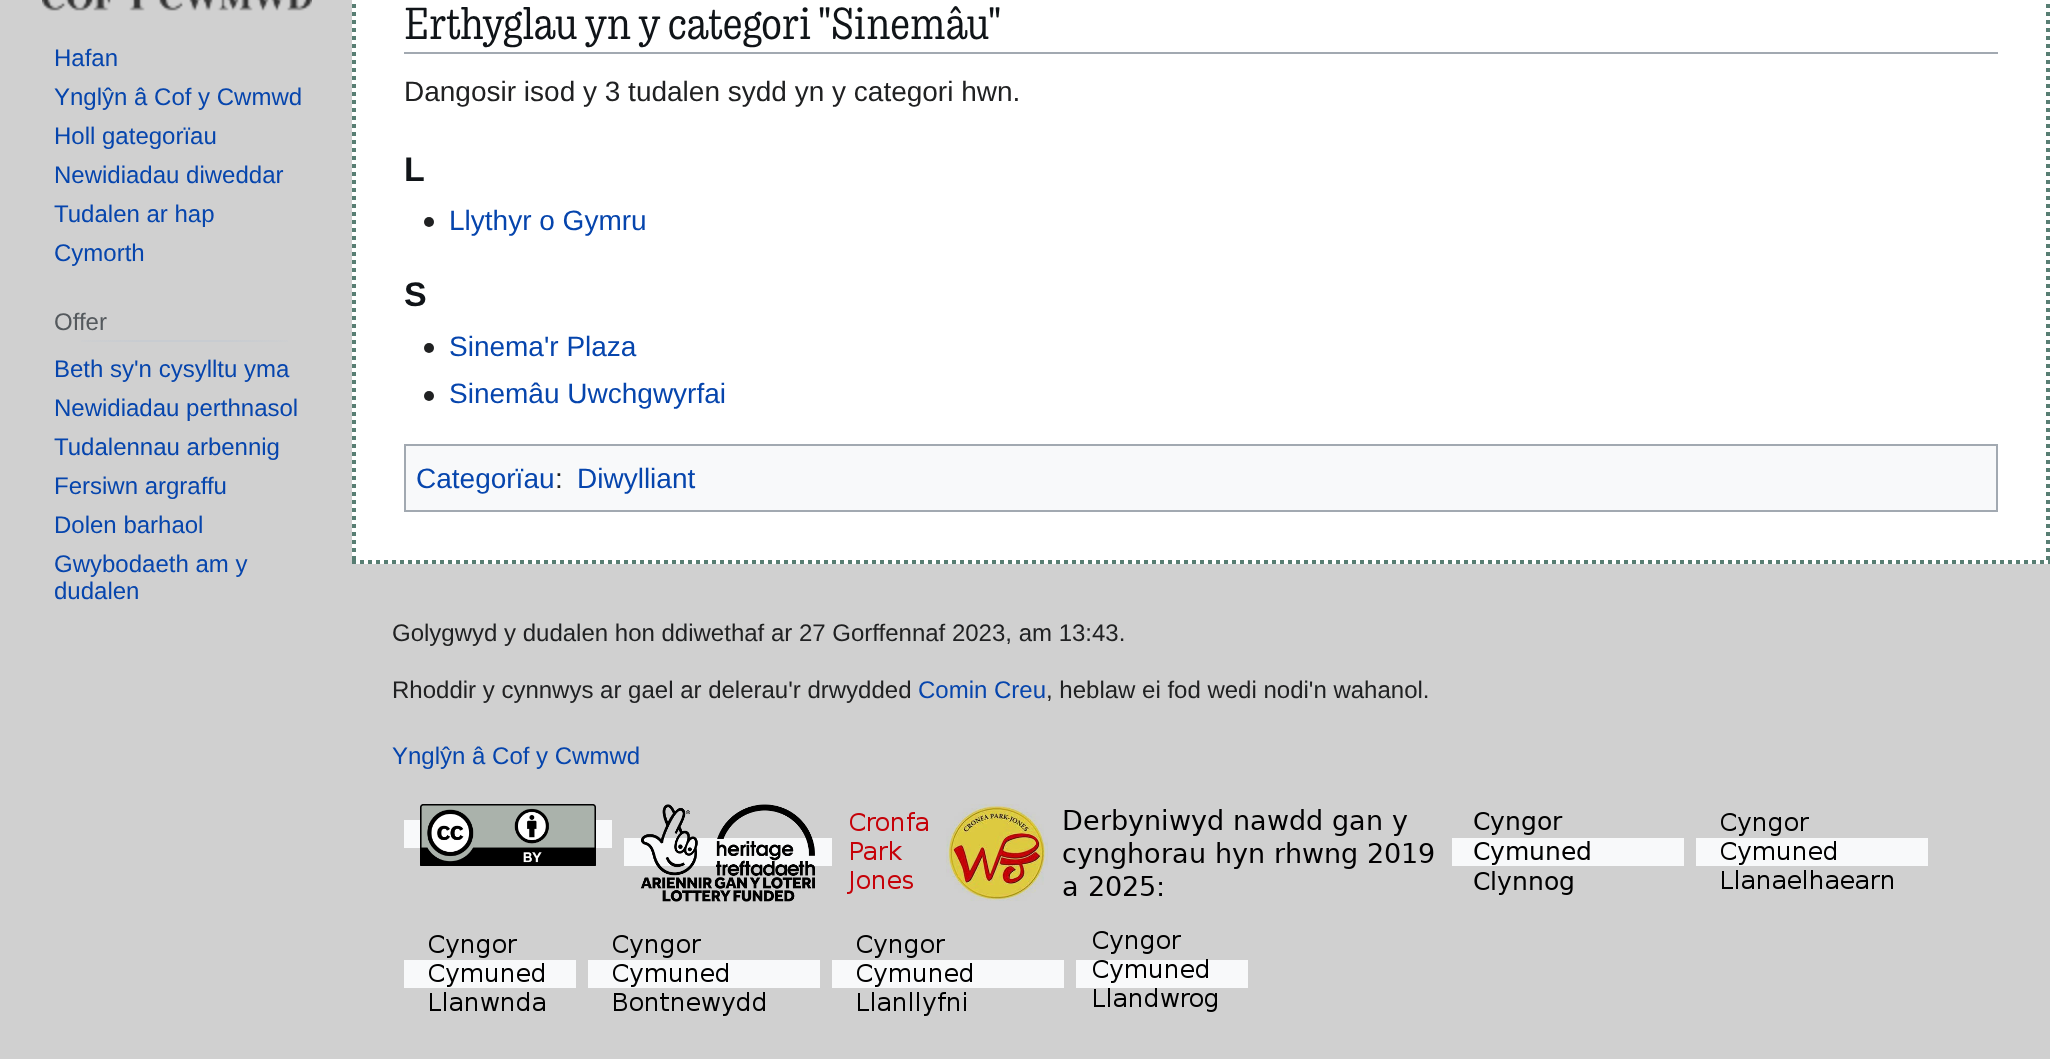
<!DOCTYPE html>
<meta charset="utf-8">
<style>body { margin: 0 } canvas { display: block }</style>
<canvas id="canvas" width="2050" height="1059"></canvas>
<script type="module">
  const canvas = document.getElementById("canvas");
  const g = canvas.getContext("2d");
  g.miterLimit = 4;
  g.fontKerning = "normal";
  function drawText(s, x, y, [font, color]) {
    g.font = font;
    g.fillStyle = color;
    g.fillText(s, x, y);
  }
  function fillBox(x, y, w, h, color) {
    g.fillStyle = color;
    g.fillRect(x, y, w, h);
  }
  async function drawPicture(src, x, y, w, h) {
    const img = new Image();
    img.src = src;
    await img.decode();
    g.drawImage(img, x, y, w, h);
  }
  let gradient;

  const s1 = ["24px Liberation Sans", "#0645AD"];
  const s2 = ["24px Liberation Sans", "#54595D"];
  const s3 = ["300 42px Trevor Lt", "#101418"];
  const s4 = ["28px Liberation Sans", "#202122"];
  const s5 = ["bold 34px Liberation Sans", "#101418"];
  const s6 = ["28px Liberation Sans", "#0645AD"];
  const s7 = ["24px Liberation Sans", "#202122"];

  fillBox(0, 0, 2050, 1059, "#D0D0D0");
  await drawPicture("pic1.png", 42, 0, 270, 11);
  drawText("Hafan", 54, 66, s1);
  drawText("Ynglŷn â Cof y Cwmwd", 54, 105, s1);
  drawText("Holl gategorïau", 54, 144, s1);
  drawText("Newidiadau diweddar", 54, 183, s1);
  drawText("Tudalen ar hap", 54, 222, s1);
  drawText("Cymorth", 54, 261, s1);
  gradient = g.createLinearGradient(54, 341, 316, 341);
  gradient.addColorStop(0, "#D0D0D0");
  gradient.addColorStop(0.33, "#C8CCD1");
  gradient.addColorStop(0.66, "#C8CCD1");
  gradient.addColorStop(1, "#D0D0D0");
  g.fillStyle = gradient;
  g.fillRect(81, 340, 207, 2);
  drawText("Offer", 54, 330, s2);
  drawText("Beth sy'n cysylltu yma", 54, 377, s1);
  drawText("Newidiadau perthnasol", 54, 416, s1);
  drawText("Tudalennau arbennig", 54, 455, s1);
  drawText("Fersiwn argraffu", 54, 494, s1);
  drawText("Dolen barhaol", 54, 533, s1);
  drawText("Gwybodaeth am y", 54, 572, s1);
  drawText("dudalen", 54, 599, s1);
  fillBox(352, 0, 1698, 564, "#FFFFFF");
  g.beginPath();
  g.moveTo(2048, -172);
  g.lineTo(2048, 564);
  g.strokeStyle = "#587E73";
  g.lineWidth = 4;
  g.setLineDash([4, 4]);
  g.stroke();
  g.beginPath();
  g.moveTo(352, 562);
  g.lineTo(2050, 562);
  g.stroke();
  g.beginPath();
  g.moveTo(354, -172);
  g.lineTo(354, 564);
  g.stroke();
  fillBox(404, 52, 1594, 2, "#A2A9B1");
  drawText("Erthyglau yn y categori \"Sinemâu\"", 404, 39, s3);
  drawText("Dangosir isod y 3 tudalen sydd yn y categori hwn.", 404, 101, s4);
  drawText("L", 404, 181, s5);
  await drawPicture("pic2.png", 424, 217, 10, 10);
  drawText("Llythyr o Gymru", 449, 230, s6);
  drawText("S", 404, 306, s5);
  await drawPicture("pic2.png", 424, 343, 10, 10);
  drawText("Sinema'r Plaza", 449, 356, s6);
  await drawPicture("pic2.png", 424, 391, 10, 10);
  drawText("Sinemâu Uwchgwyrfai", 449, 403, s6);
  g.fillStyle = "#F8F9FA";
  g.beginPath();
  g.rect(405, 445, 1592, 66);
  g.fill();
  g.strokeStyle = "#A2A9B1";
  g.lineWidth = 2;
  g.setLineDash([]);
  g.stroke();
  drawText("Categorïau", 416, 488, s6);
  drawText(":", 555, 488, s4);
  drawText("Diwylliant", 577, 488, s6);
  drawText("Golygwyd y dudalen hon ddiwethaf ar 27 Gorffennaf 2023, am 13:43.", 392, 641, s7);
  drawText("Rhoddir y cynnwys ar gael ar delerau'r drwydded", 392, 698, s7);
  drawText("Comin Creu", 918, 698, s1);
  drawText(", heblaw ei fod wedi nodi'n wahanol.", 1046, 698, s7);
  drawText("Ynglŷn â Cof y Cwmwd", 392, 764, s1);
  fillBox(404, 820, 208, 28, "#F8F9FA");
  await drawPicture("pic3.png", 420, 804, 176, 62);
  fillBox(624, 838, 208, 28, "#F8F9FA");
  await drawPicture("pic4.png", 640, 804, 175, 98);
  await drawPicture("pic5.png", 847, 812, 81, 82);
  await drawPicture("pic6.png", 946, 804, 102, 97);
  await drawPicture("pic7.png", 1063, 809, 371, 87);
  fillBox(1452, 838, 232, 28, "#F8F9FA");
  await drawPicture("pic8.png", 1474, 812, 116, 83);
  fillBox(1696, 838, 232, 28, "#F8F9FA");
  await drawPicture("pic9.png", 1721, 813, 172, 76);
  fillBox(404, 960, 172, 28, "#F8F9FA");
  await drawPicture("pic10.png", 429, 935, 116, 76);
  fillBox(588, 960, 232, 28, "#F8F9FA");
  await drawPicture("pic11.png", 613, 935, 152, 81);
  fillBox(832, 960, 232, 28, "#F8F9FA");
  await drawPicture("pic12.png", 857, 935, 115, 81);
  fillBox(1076, 960, 172, 28, "#F8F9FA");
  await drawPicture("pic13.png", 1093, 931, 124, 81);
</script>
